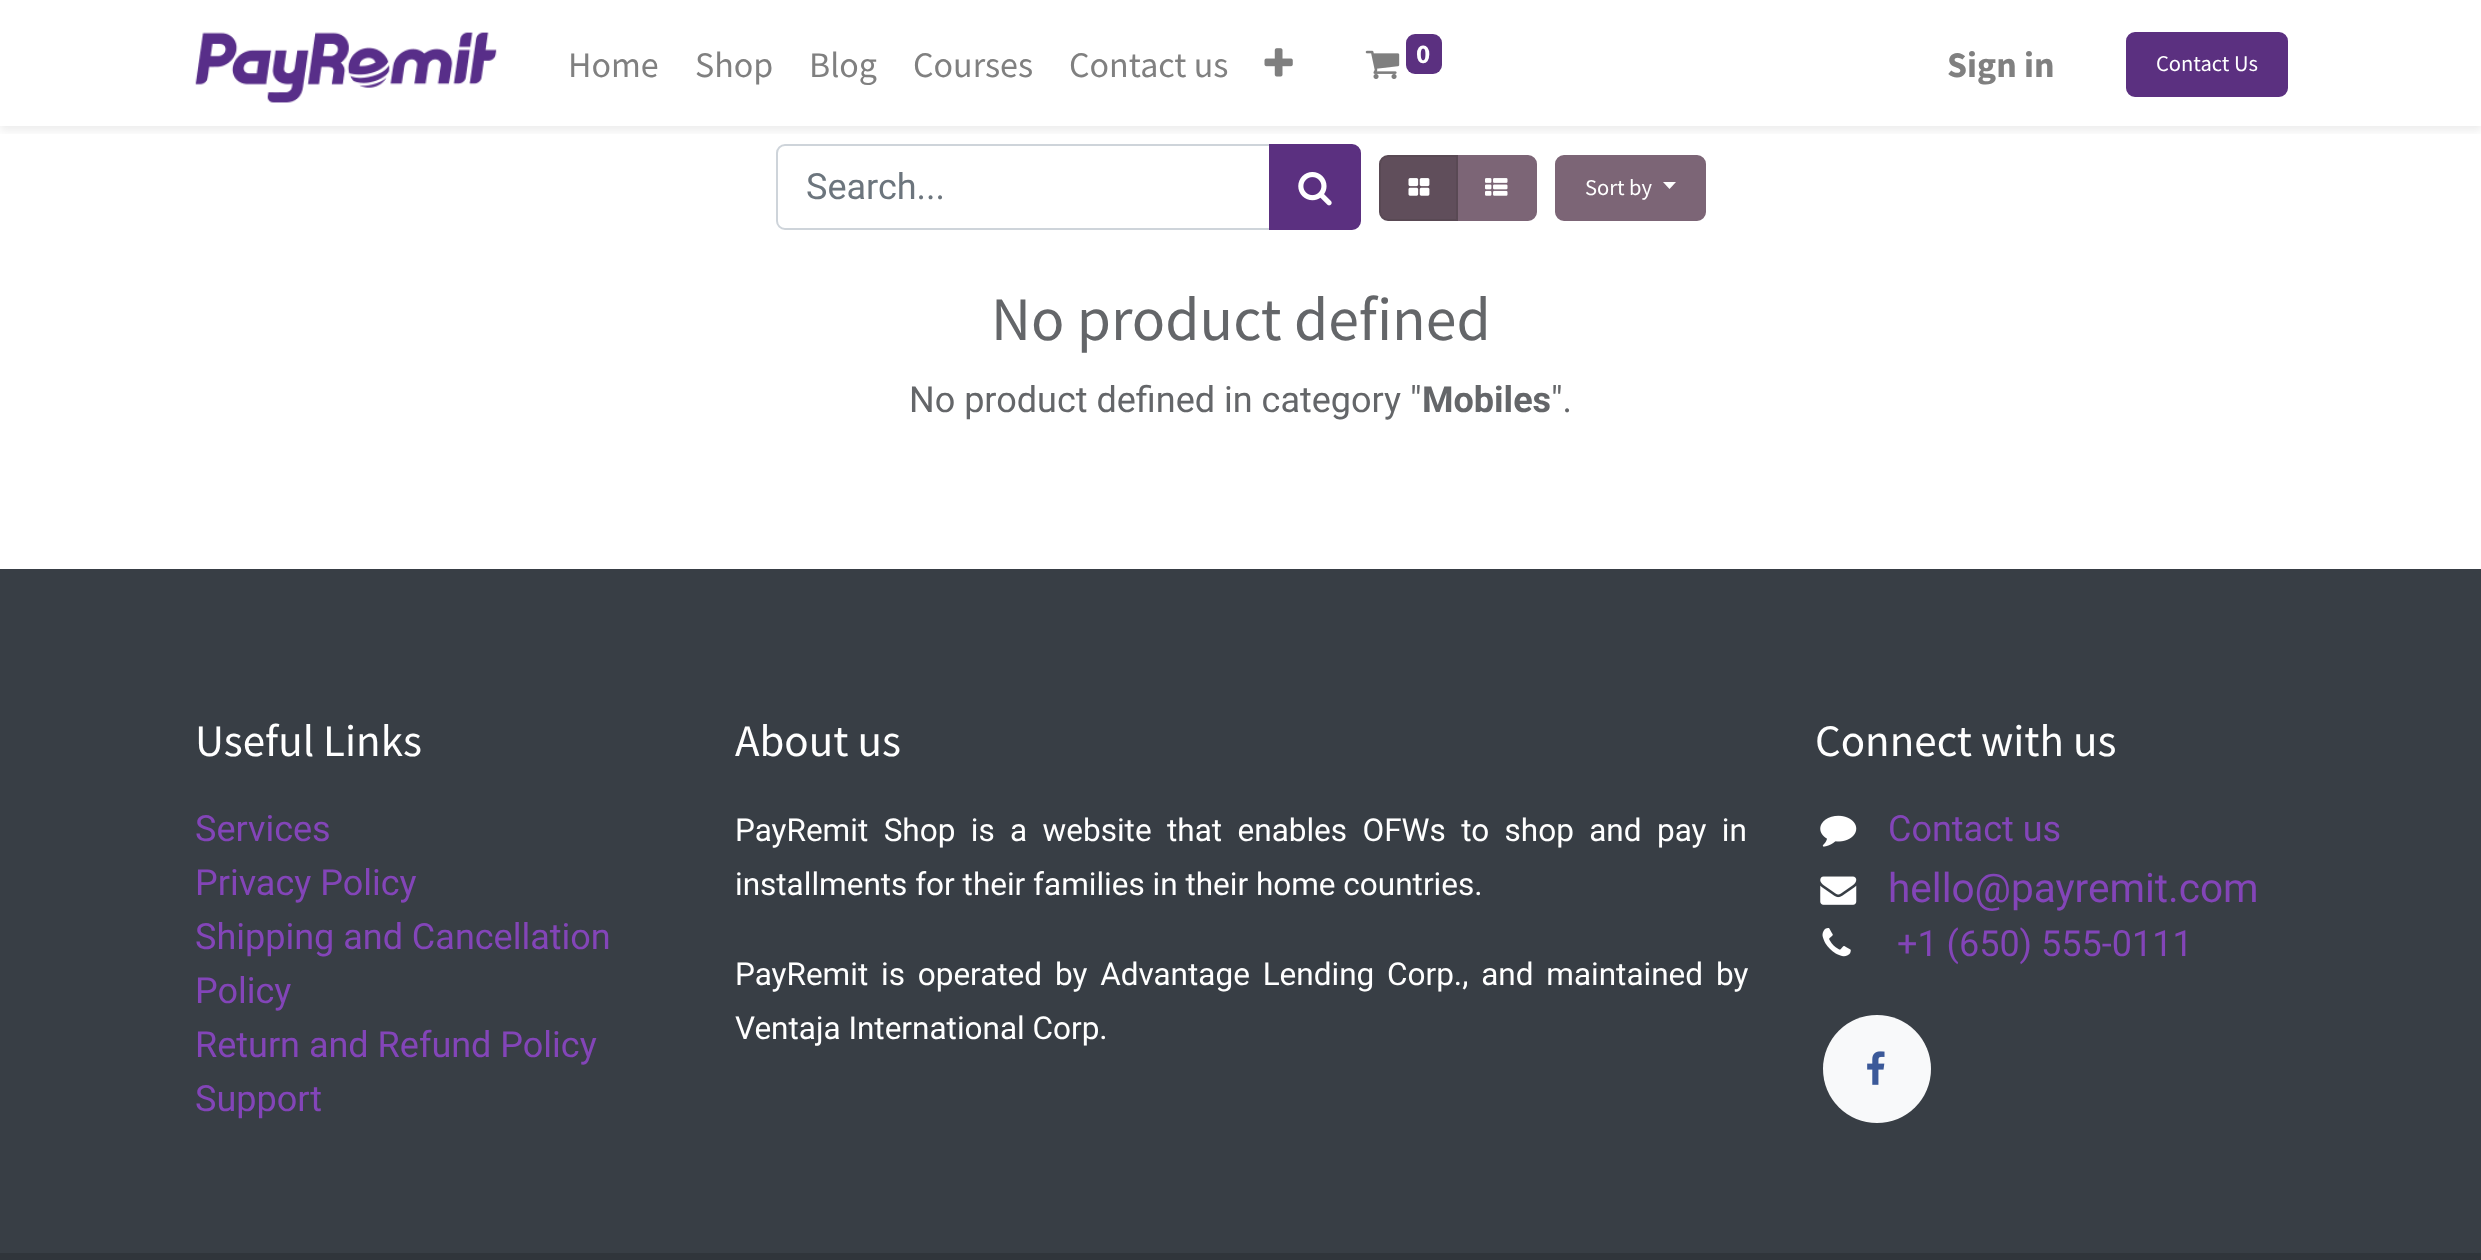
<!DOCTYPE html>
<meta charset="utf-8">
<style>body { margin: 0 } canvas { display: block }</style>
<canvas id="canvas" width="2481" height="1260"></canvas>
<script type="module">
  const canvas = document.getElementById("canvas");
  const g = canvas.getContext("2d");
  g.miterLimit = 4;
  g.fontKerning = "normal";
  function drawText(s, x, y, [font, color]) {
    g.font = font;
    g.fillStyle = color;
    g.fillText(s, x, y);
  }
  function fillBox(x, y, w, h, color) {
    g.fillStyle = color;
    g.fillRect(x, y, w, h);
  }
  function fillRounded(x, y, w, h, r, color) {
    g.fillStyle = color;
    g.beginPath();
    g.roundRect(x, y, w, h, r);
    g.fill();
  }
  async function drawPicture(src, x, y, w, h) {
    const img = new Image();
    img.src = src;
    await img.decode();
    g.drawImage(img, x, y, w, h);
  }

  const s1 = ["36px Source Sans Pro", "#808080"];
  const s2 = ["bold 27px Source Sans Pro", "#FFFFFF"];
  const s3 = ["bold 36px Source Sans Pro", "#808080"];
  const s4 = ["22.5px Source Sans Pro", "#FFFFFF"];
  const s5 = ["36px Roboto", "#6C757D"];
  const s6 = ["61.75px Source Sans Pro", "#646669"];
  const s7 = ["36px Roboto", "#646669"];
  const s8 = ["bold 36px Roboto", "#646669"];
  const s9 = ["45px Source Sans Pro", "#FFFFFF"];
  const s10 = ["36px Roboto", "#8345B8"];
  const s11 = ["31.5px Roboto", "#FFFFFF"];
  const s12 = ["40.5px Roboto", "#8345B8"];

  fillBox(0, 0, 2481, 1260, "#FFFFFF");
  g.beginPath();
  g.roundRect(777, 145, 493, 84, [8, 0, 0, 8]);
  g.strokeStyle = "#CED4DA";
  g.lineWidth = 2;
  g.stroke();
  g.fillStyle = "#5B3080";
  g.beginPath();
  g.roundRect(1270, 145, 90, 84, [0, 8, 8, 0]);
  g.fill();
  g.strokeStyle = "#5B3080";
  g.stroke();
  g.save();
  g.beginPath();
  g.rect(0, 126, 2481, 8);
  g.clip();
  g.fillStyle = "rgba(0, 0, 0, 0.07)";
  g.filter = "blur(4.5px)";
  g.beginPath();
  g.rect(0, 5, 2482, 126);
  g.fill();
  g.filter = "none";
  g.restore();
  await drawPicture("pic1.png", 195, 32, 302, 71);
  drawText("Home", 568, 77, s1);
  drawText("Shop", 695, 77, s1);
  drawText("Blog", 809, 77, s1);
  drawText("Courses", 913, 77, s1);
  drawText("Contact us", 1069, 77, s1);
  await drawPicture("pic2.png", 1264, 48, 29, 29);
  await drawPicture("pic3.png", 1365, 50, 35, 29);
  fillRounded(1406, 34, 36, 40, 9, "#5B3080");
  drawText("0", 1416, 63, s2);
  drawText("Sign in", 1947, 77, s3);
  g.fillStyle = "#5B3080";
  g.beginPath();
  g.roundRect(2127, 33, 160, 63, 8);
  g.fill();
  g.stroke();
  drawText("Contact Us", 2156, 71, s4);
  drawText("Search...", 806, 199, s5);
  await drawPicture("pic4.png", 1298, 172, 34, 34);
  g.fillStyle = "#7C6576";
  g.beginPath();
  g.roundRect(1457, 156, 79, 64, [0, 8, 8, 0]);
  g.fill();
  g.strokeStyle = "#7C6576";
  g.stroke();
  g.fillStyle = "#604E5B";
  g.beginPath();
  g.roundRect(1380, 156, 77, 64, [8, 0, 0, 8]);
  g.fill();
  g.strokeStyle = "#594954";
  g.stroke();
  await drawPicture("pic5.png", 1408, 178, 22, 18);
  await drawPicture("pic6.png", 1485, 178, 23, 18);
  g.fillStyle = "#7C6576";
  g.beginPath();
  g.roundRect(1556, 156, 149, 64, 8);
  g.fill();
  g.strokeStyle = "#7C6576";
  g.stroke();
  drawText("Sort by", 1585, 195, s4);
  g.beginPath();
  g.moveTo(1663, 182);
  g.lineTo(1676, 182);
  g.lineTo(1669.5, 189);
  g.closePath();
  g.fill();
  drawText("No product defined", 991, 340, s6);
  drawText("No product defined in category \"", 909, 412, s7);
  drawText("Mobiles", 1422, 412, s8);
  drawText("\".", 1551, 412, s7);
  fillBox(0, 569, 2481, 684, "#383E45");
  drawText("Useful Links", 195, 756, s9);
  drawText("Services", 195, 841, s10);
  drawText("Privacy Policy", 195, 895, s10);
  drawText("Shipping and Cancellation", 195, 949, s10);
  drawText("Policy", 195, 1003, s10);
  drawText("Return and Refund Policy", 195, 1057, s10);
  drawText("Support", 195, 1111, s10);
  drawText("About us", 735, 756, s9);
  g.wordSpacing = "7.6px";
  drawText("PayRemit Shop is a website that enables OFWs to shop and pay in", 735, 841, s11);
  g.wordSpacing = "0px";
  drawText("installments for their families in their home countries.", 735, 895, s11);
  g.wordSpacing = "5px";
  drawText("PayRemit is operated by Advantage Lending Corp., and maintained by", 735, 985, s11);
  g.wordSpacing = "0px";
  drawText("Ventaja International Corp.", 735, 1039, s11);
  drawText("Connect with us", 1815, 756, s9);
  await drawPicture("pic7.png", 1820, 815, 37, 32);
  drawText("Contact us", 1888, 841, s10);
  await drawPicture("pic8.png", 1820, 876, 37, 29);
  drawText("hello@payremit.com", 1888, 902, s12);
  await drawPicture("pic9.png", 1822, 928, 29, 29);
  drawText("+1 (650) 555-0111", 1897, 956, s10);
  g.fillStyle = "#F8F9FA";
  g.beginPath();
  g.arc(1877, 1069, 54, 0, Math.PI * 2);
  g.fill();
  await drawPicture("pic10.png", 1867, 1051, 18, 34);
  fillBox(0, 1253, 2481, 7, "#30353B");
</script>
